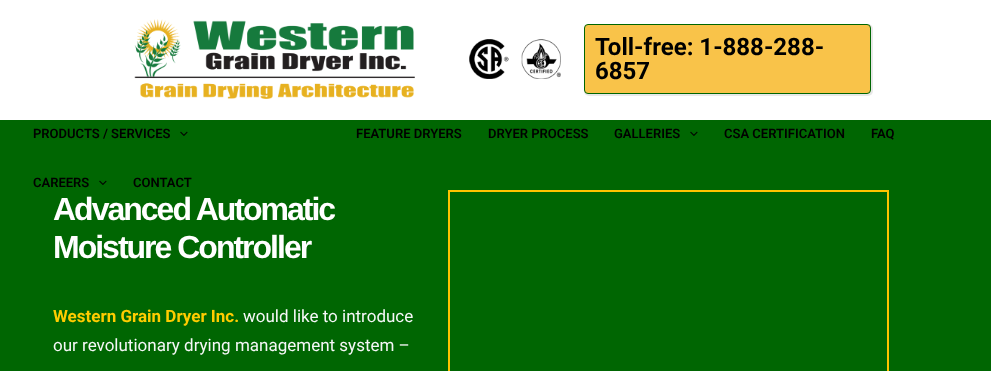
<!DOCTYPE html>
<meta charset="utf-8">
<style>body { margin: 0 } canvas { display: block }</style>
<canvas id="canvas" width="991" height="371"></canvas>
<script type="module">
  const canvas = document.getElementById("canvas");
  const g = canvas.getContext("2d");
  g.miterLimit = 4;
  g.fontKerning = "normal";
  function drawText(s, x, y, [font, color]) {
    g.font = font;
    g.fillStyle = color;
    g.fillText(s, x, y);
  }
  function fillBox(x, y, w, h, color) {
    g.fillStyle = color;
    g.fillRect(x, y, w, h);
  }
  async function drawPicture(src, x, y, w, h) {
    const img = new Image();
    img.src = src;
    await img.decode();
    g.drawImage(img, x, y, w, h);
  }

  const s1 = ["bold 24px Roboto", "#000000"];
  const s2 = ["600 13px Roboto", "#000000"];
  const s3 = ["bold 32px Liberation Sans", "#FFFFFF"];
  const s4 = ["bold 17px Roboto", "#FFCC00"];
  const s5 = ["17px Roboto", "#F6F7F8"];

  fillBox(0, 0, 991, 371, "#FFFFFF");
  await drawPicture("pic1.png", 134, 19, 281, 80);
  await drawPicture("pic2.png", 469, 39, 92, 40);
  g.fillStyle = "rgba(0, 0, 0, 0.09)";
  g.filter = "blur(0.5px)";
  g.beginPath();
  g.roundRect(584, 24, 289, 72, 5);
  g.fill();
  g.filter = "none";
  g.fillStyle = "#F9C349";
  g.beginPath();
  g.roundRect(584.5, 24.5, 286, 69, 3.5);
  g.fill();
  g.strokeStyle = "#006602";
  g.stroke();
  drawText("Toll-free: 1-888-288-", 595, 55, s1);
  drawText("6857", 595, 79, s1);
  fillBox(0, 120, 991, 251, "#006602");
  drawText("PRODUCTS / SERVICES", 33, 138, s2);
  await drawPicture("pic3.png", 180, 131, 8, 5);
  drawText("FEATURE DRYERS", 356, 138, s2);
  drawText("DRYER PROCESS", 488, 138, s2);
  drawText("GALLERIES", 614, 138, s2);
  await drawPicture("pic3.png", 690, 131, 8, 5);
  drawText("CSA CERTIFICATION", 724, 138, s2);
  drawText("FAQ", 871, 138, s2);
  drawText("CAREERS", 33, 187, s2);
  await drawPicture("pic3.png", 99, 180, 8, 5);
  drawText("CONTACT", 133, 187, s2);
  g.letterSpacing = "-2px";
  drawText("Advanced Automatic", 53, 220, s3);
  drawText("Moisture Controller", 53, 258, s3);
  g.letterSpacing = "0px";
  drawText("Western Grain Dryer Inc.", 53, 322, s4);
  drawText("would like to introduce", 243, 322, s5);
  drawText("our revolutionary drying management system –", 53, 351, s5);
  g.strokeStyle = "#FFC300";
  g.lineWidth = 2;
  g.strokeRect(449, 191, 439, 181);
</script>
